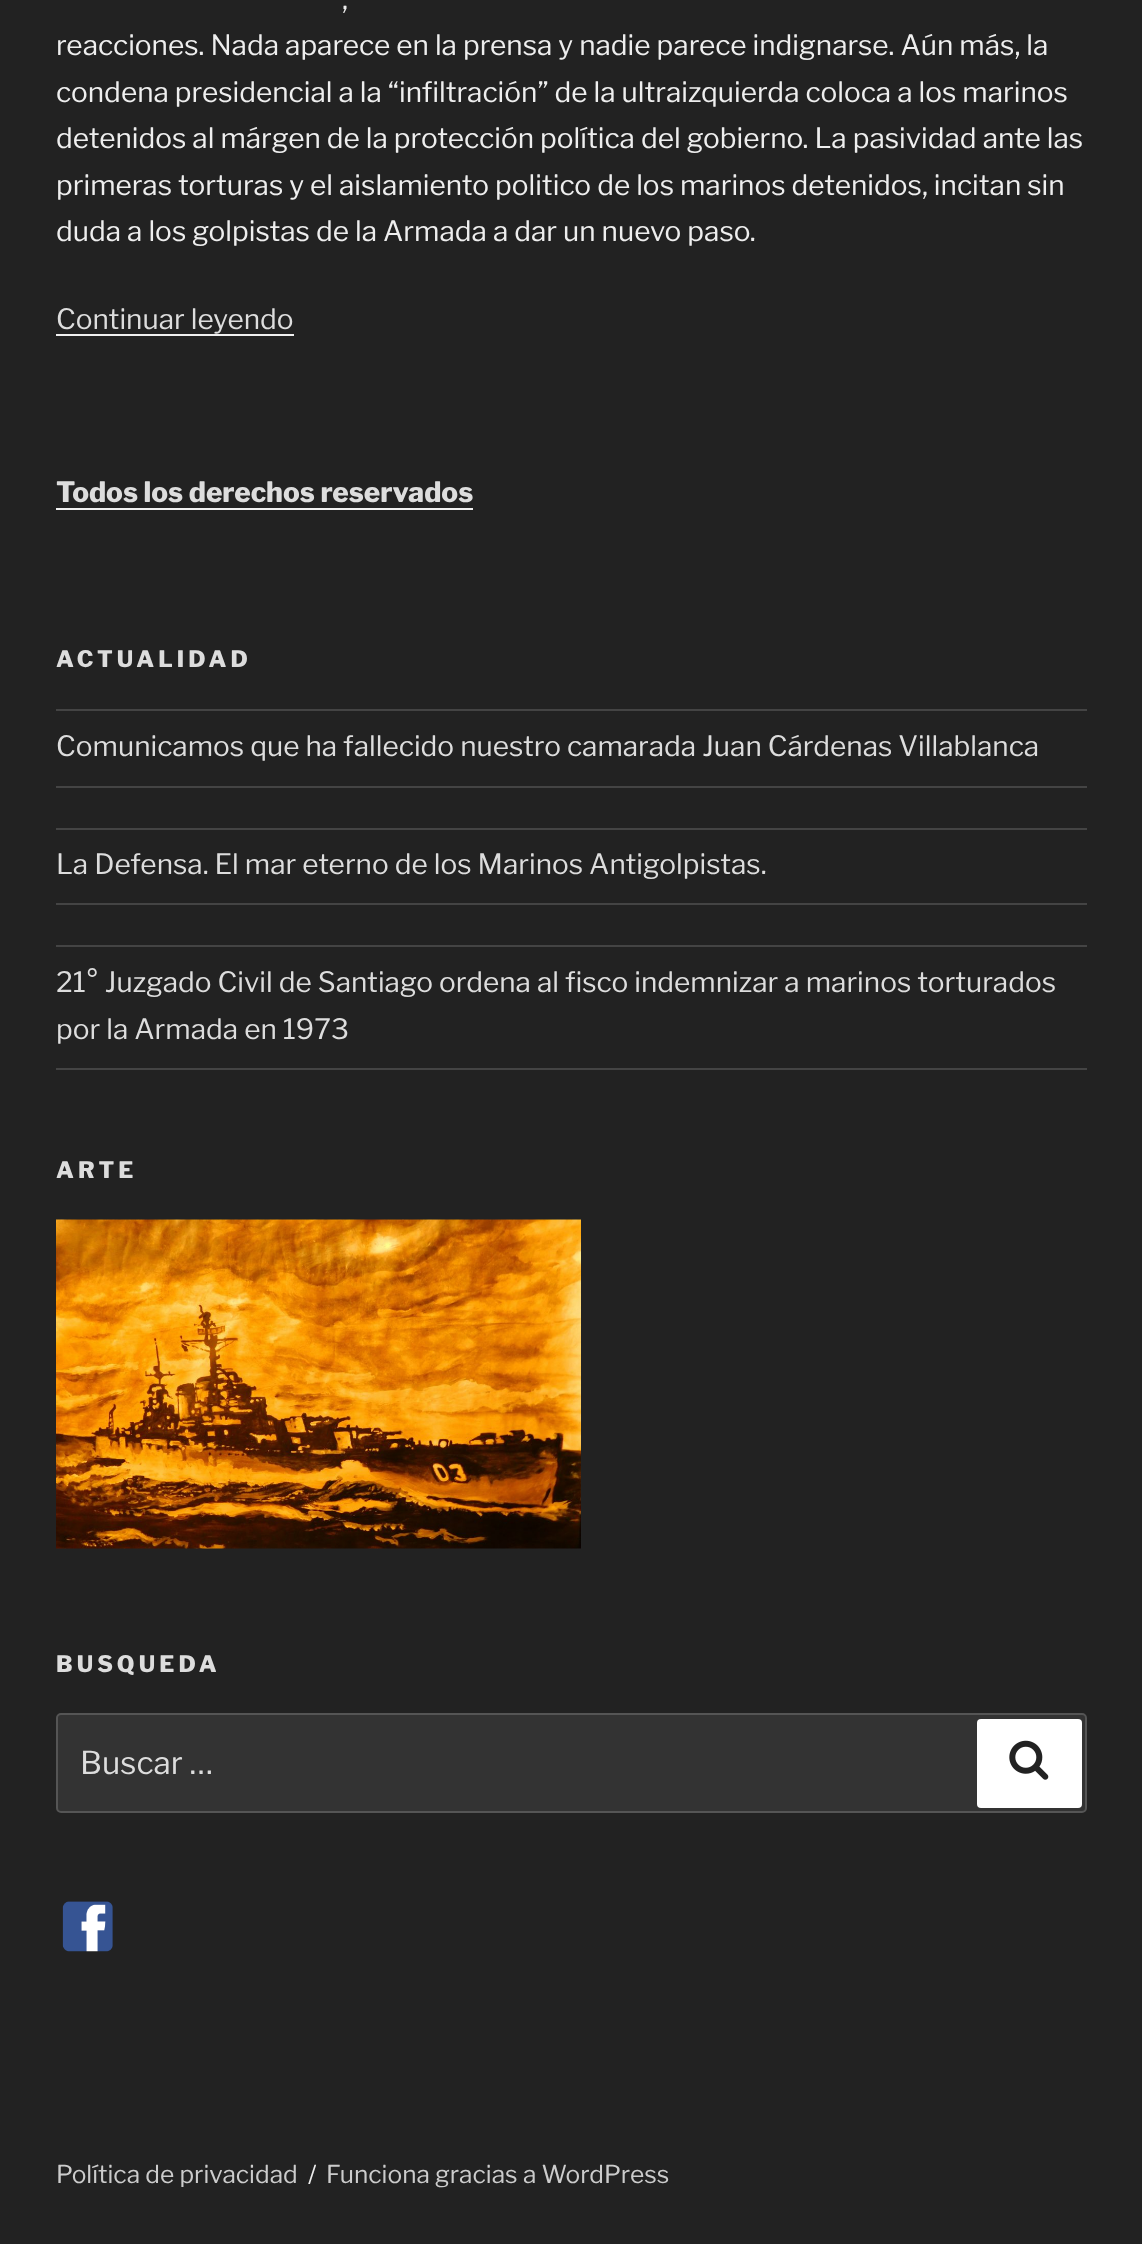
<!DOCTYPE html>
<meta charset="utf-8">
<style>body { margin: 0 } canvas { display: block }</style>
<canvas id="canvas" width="1142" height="2244"></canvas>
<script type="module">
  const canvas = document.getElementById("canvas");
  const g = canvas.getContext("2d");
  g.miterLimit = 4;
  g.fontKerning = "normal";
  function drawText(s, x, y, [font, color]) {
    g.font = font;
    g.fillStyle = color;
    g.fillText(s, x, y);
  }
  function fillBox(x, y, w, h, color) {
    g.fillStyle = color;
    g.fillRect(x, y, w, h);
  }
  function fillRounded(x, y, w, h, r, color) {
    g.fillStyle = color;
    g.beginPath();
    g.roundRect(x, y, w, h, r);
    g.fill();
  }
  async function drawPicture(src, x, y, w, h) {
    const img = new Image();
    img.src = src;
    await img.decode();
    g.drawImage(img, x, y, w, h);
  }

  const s1 = ["100 28px Libre Franklin", "#EEEEEE"];
  const s2 = ["100 28px Libre Franklin", "#DDDDDD"];
  const s3 = ["100 28px 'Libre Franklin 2'", "#DDDDDD"];
  const s4 = ["100 22.75px 'Libre Franklin 2'", "#DDDDDD"];
  const s5 = ["100 31.5px Libre Franklin", "#DDDDDD"];
  const s6 = ["100 24.5px Libre Franklin", "#CCCCCC"];
  const s7 = ["100 24.5px Libre Franklin", "#EEEEEE"];

  fillBox(0, 0, 1142, 2244, "#222222");
  drawText(",", 342, 9, s1);
  drawText("reacciones. Nada aparece en la prensa y nadie parece indignarse. Aún más, la", 56, 55, s1);
  drawText("condena presidencial a la “infiltración” de la ultraizquierda coloca a los marinos", 56, 102, s1);
  drawText("detenidos al márgen de la protección política del gobierno. La pasividad ante las", 56, 148, s1);
  drawText("primeras torturas y el aislamiento politico de los marinos detenidos, incitan sin", 56, 195, s1);
  drawText("duda a los golpistas de la Armada a dar un nuevo paso.", 56, 241, s1);
  drawText("Continuar leyendo", 56, 329, s2);
  fillBox(56, 334, 238, 2, "#F0F0F0");
  drawText("Todos los derechos reservados", 56, 502, s3);
  fillBox(56, 508, 417, 2, "#F0F0F0");
  g.letterSpacing = "4.1px";
  drawText("ACTUALIDAD", 56, 667, s4);
  fillBox(56, 709, 1031, 2, "#444444");
  fillBox(56, 786, 1031, 2, "#444444");
  g.letterSpacing = "0px";
  drawText("Comunicamos que ha fallecido nuestro camarada Juan Cárdenas Villablanca", 56, 756, s2);
  fillBox(56, 828, 1031, 2, "#444444");
  fillBox(56, 903, 1031, 2, "#444444");
  drawText("La Defensa. El mar eterno de los Marinos Antigolpistas.", 56, 874, s2);
  fillBox(56, 945, 1031, 2, "#444444");
  fillBox(56, 1068, 1031, 2, "#444444");
  drawText("21° Juzgado Civil de Santiago ordena al fisco indemnizar a marinos torturados", 56, 992, s2);
  drawText("por la Armada en 1973", 56, 1039, s2);
  g.letterSpacing = "4.1px";
  drawText("ARTE", 56, 1178, s4);
  await drawPicture("pic1.png", 56, 1219, 525, 330);
  drawText("BUSQUEDA", 56, 1672, s4);
  g.fillStyle = "#333333";
  g.beginPath();
  g.roundRect(57, 1714, 1029, 98, 4);
  g.fill();
  g.strokeStyle = "#555555";
  g.lineWidth = 2;
  g.stroke();
  g.letterSpacing = "0px";
  drawText("Buscar …", 80, 1774, s5);
  fillRounded(977, 1719, 105, 89, 4, "#FFFFFF");
  await drawPicture("pic2.png", 1009, 1740, 40, 40);
  await drawPicture("pic3.png", 62, 1901, 51, 51);
  drawText("Política de privacidad", 56, 2183, s6);
  drawText("/", 308, 2183, s7);
  drawText("Funciona gracias a WordPress", 326, 2183, s6);
</script>
